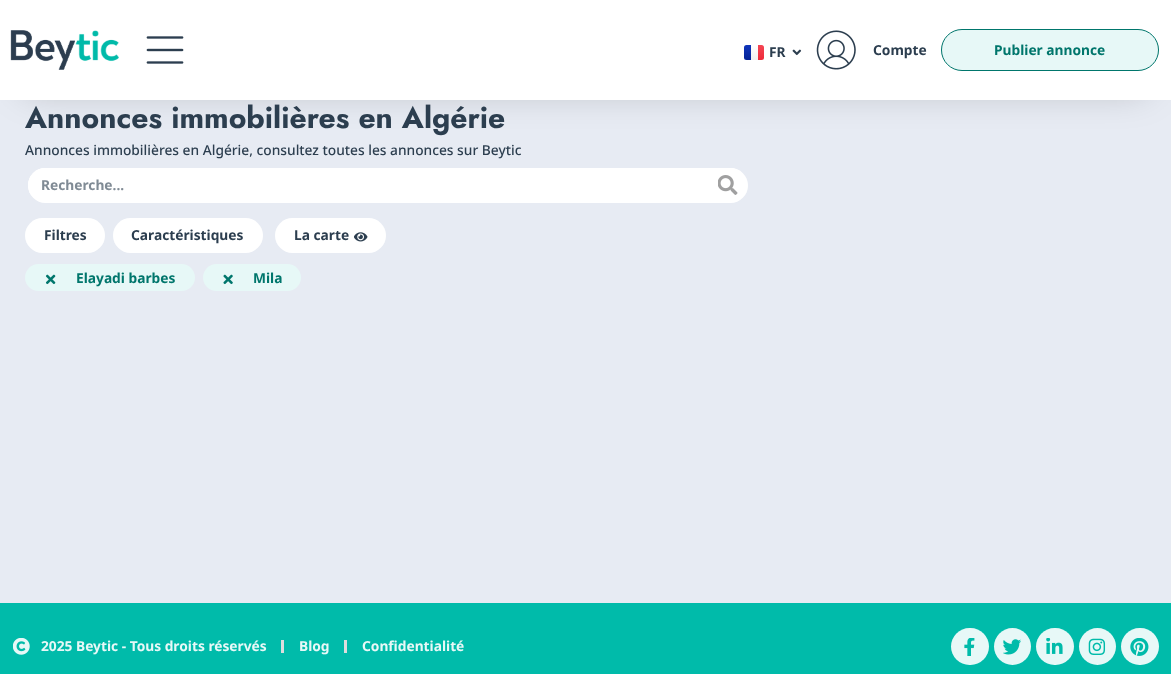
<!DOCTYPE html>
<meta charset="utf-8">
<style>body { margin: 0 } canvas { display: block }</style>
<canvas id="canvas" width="1171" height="674"></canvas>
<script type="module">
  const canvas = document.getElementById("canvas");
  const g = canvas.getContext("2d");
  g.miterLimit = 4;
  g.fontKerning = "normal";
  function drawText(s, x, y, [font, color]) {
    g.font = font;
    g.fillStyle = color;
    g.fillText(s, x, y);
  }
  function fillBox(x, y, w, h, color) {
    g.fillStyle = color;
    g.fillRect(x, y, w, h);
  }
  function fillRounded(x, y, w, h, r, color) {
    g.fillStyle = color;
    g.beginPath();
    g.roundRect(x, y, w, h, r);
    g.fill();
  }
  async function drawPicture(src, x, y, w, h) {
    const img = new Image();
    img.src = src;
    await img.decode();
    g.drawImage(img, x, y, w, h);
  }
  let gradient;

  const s1 = ["bold 13.75px Noto Sans", "#2C3E4F"];
  const s2 = ["bold 13.75px Noto Sans", "#00766C"];
  const s3 = ["bold 30px Jost", "#2C3E4F"];
  const s4 = ["500 13.75px Noto Sans", "#2C3E4F"];
  const s5 = ["bold 13.75px Noto Sans", "#808B95"];
  const s6 = ["bold 13.75px Noto Sans", "#E7F8F7"];

  fillBox(0, 0, 1171, 674, "#E7EBF3");
  g.fillStyle = "rgba(0, 0, 0, 0.25)";
  g.filter = "blur(19px)";
  g.beginPath();
  g.rect(25, 38, 1121, 50);
  g.fill();
  g.filter = "none";
  fillBox(0, 0, 1171, 100, "#FFFFFF");
  await drawPicture("pic1.png", 10, 30, 109, 40);
  await drawPicture("pic2.png", 146, 36, 38, 28);
  gradient = g.createLinearGradient(747, 45, 747, 60);
  gradient.addColorStop(0, "#1035BB");
  gradient.addColorStop(1, "#042396");
  g.fillStyle = gradient;
  g.beginPath();
  g.roundRect(744, 45, 7, 15, [2.5, 0, 0, 2.5]);
  g.fill();
  gradient = g.createLinearGradient(759, 45, 759, 60);
  gradient.addColorStop(0, "#F44653");
  gradient.addColorStop(1, "#EE2A39");
  g.fillStyle = gradient;
  g.beginPath();
  g.roundRect(754, 45, 10, 15, [0, 2.5, 2.5, 0]);
  g.fill();
  gradient = g.createLinearGradient(754, 45, 754, 60);
  gradient.addColorStop(0, "#FFFFFF");
  gradient.addColorStop(1, "#F0F0F0");
  g.fillStyle = gradient;
  g.fillRect(751, 45, 7, 15);
  drawText("FR", 769, 57, s1);
  await drawPicture("pic3.png", 792, 49, 10, 7);
  await drawPicture("pic4.png", 816, 30, 40, 40);
  drawText("Compte", 873, 55, s1);
  g.fillStyle = "#E7F8F7";
  g.beginPath();
  g.roundRect(941.5, 29.5, 217, 41, 20.5);
  g.fill();
  g.strokeStyle = "#00766C";
  g.stroke();
  drawText("Publier annonce", 994, 55, s2);
  drawText("Annonces immobilières en Algérie", 25, 128, s3);
  drawText("Annonces immobilières en Algérie, consultez toutes les annonces sur Beytic", 25, 155, s4);
  g.fillStyle = "#FFFFFF";
  g.beginPath();
  g.roundRect(26.5, 166.5, 722, 37, 18.5);
  g.fill();
  g.strokeStyle = "#E7EBF3";
  g.lineWidth = 3;
  g.stroke();
  g.beginPath();
  g.roundRect(28, 168, 680, 35, [17.5, 0, 0, 17.5]);
  g.fill();
  drawText("Recherche...", 41, 190, s5);
  g.fillStyle = "#FFFFFF";
  g.beginPath();
  g.roundRect(708, 168, 40, 35, [0, 17.5, 17.5, 0]);
  g.fill();
  await drawPicture("pic5.png", 718, 175, 20, 20);
  fillRounded(25, 218, 80, 35, 17.5, "#FFFFFF");
  drawText("Filtres", 44, 240, s1);
  fillRounded(113, 218, 150, 35, 17.5, "#FFFFFF");
  drawText("Caractéristiques", 131, 240, s1);
  fillRounded(275, 218, 111, 35, 17.5, "#FFFFFF");
  drawText("La carte", 294, 240, s1);
  await drawPicture("pic6.png", 354, 232, 14, 10);
  fillRounded(25, 264, 170, 27, 13.5, "#E7F8F7");
  await drawPicture("pic7.png", 45, 274, 11, 11);
  drawText("Elayadi barbes", 76, 283, s2);
  fillRounded(203, 264, 98, 27, 13.5, "#E7F8F7");
  await drawPicture("pic8.png", 223, 274, 10, 11);
  drawText("Mila", 253, 283, s2);
  fillBox(0, 603, 1171, 71, "#00BBAA");
  await drawPicture("pic9.png", 13, 638, 17, 17);
  drawText("2025 Beytic - Tous droits réservés", 41, 651, s6);
  fillBox(281, 640, 3, 13, "#DDDDDD");
  drawText("Blog", 299, 651, s6);
  fillBox(344, 640, 3, 13, "#DDDDDD");
  drawText("Confidentialité", 362, 651, s6);
  fillRounded(951, 628, 38, 37, 18.5, "#E7F8F7");
  await drawPicture("pic10.png", 964, 638, 11, 18);
  g.beginPath();
  g.arc(1012.5, 646.5, 18.5, 0, Math.PI * 2);
  g.fill();
  await drawPicture("pic11.png", 1003, 639, 18, 16);
  fillRounded(1036, 628, 38, 37, 18.5, "#E7F8F7");
  await drawPicture("pic12.png", 1046, 638, 17, 16);
  g.beginPath();
  g.arc(1097.5, 646.5, 18.5, 0, Math.PI * 2);
  g.fill();
  await drawPicture("pic13.png", 1088, 638, 18, 17);
  fillRounded(1121, 628, 38, 37, 18.5, "#E7F8F7");
  await drawPicture("pic14.png", 1130, 638, 19, 18);
</script>
